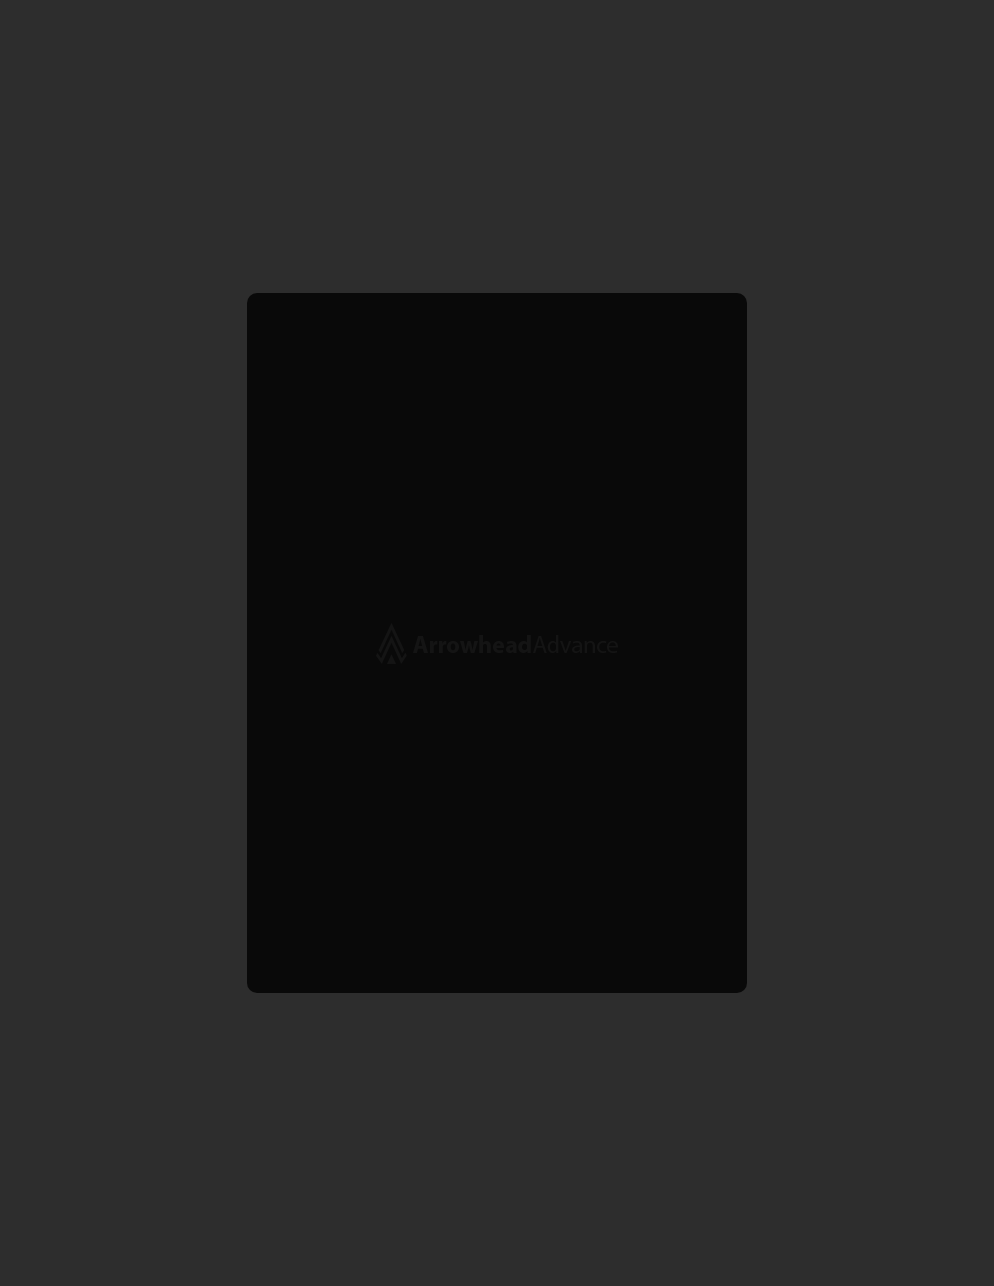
<!DOCTYPE html>
<meta charset="utf-8">
<style>body { margin: 0 } canvas { display: block }</style>
<canvas id="canvas" width="994" height="1286"></canvas>
<script type="module">
  const canvas = document.getElementById("canvas");
  const g = canvas.getContext("2d");
  g.miterLimit = 4;
  g.fontKerning = "normal";
  function fillBox(x, y, w, h, color) {
    g.fillStyle = color;
    g.fillRect(x, y, w, h);
  }
  function fillRounded(x, y, w, h, r, color) {
    g.fillStyle = color;
    g.beginPath();
    g.roundRect(x, y, w, h, r);
    g.fill();
  }
  async function drawPicture(src, x, y, w, h) {
    const img = new Image();
    img.src = src;
    await img.decode();
    g.drawImage(img, x, y, w, h);
  }

  fillBox(0, 0, 994, 1286, "#2D2D2D");
  await drawPicture("pic1.png", 376, 623, 242, 41);
  fillRounded(247, 293, 500, 700, 10, "rgba(0, 0, 0, 0.8)");
</script>
